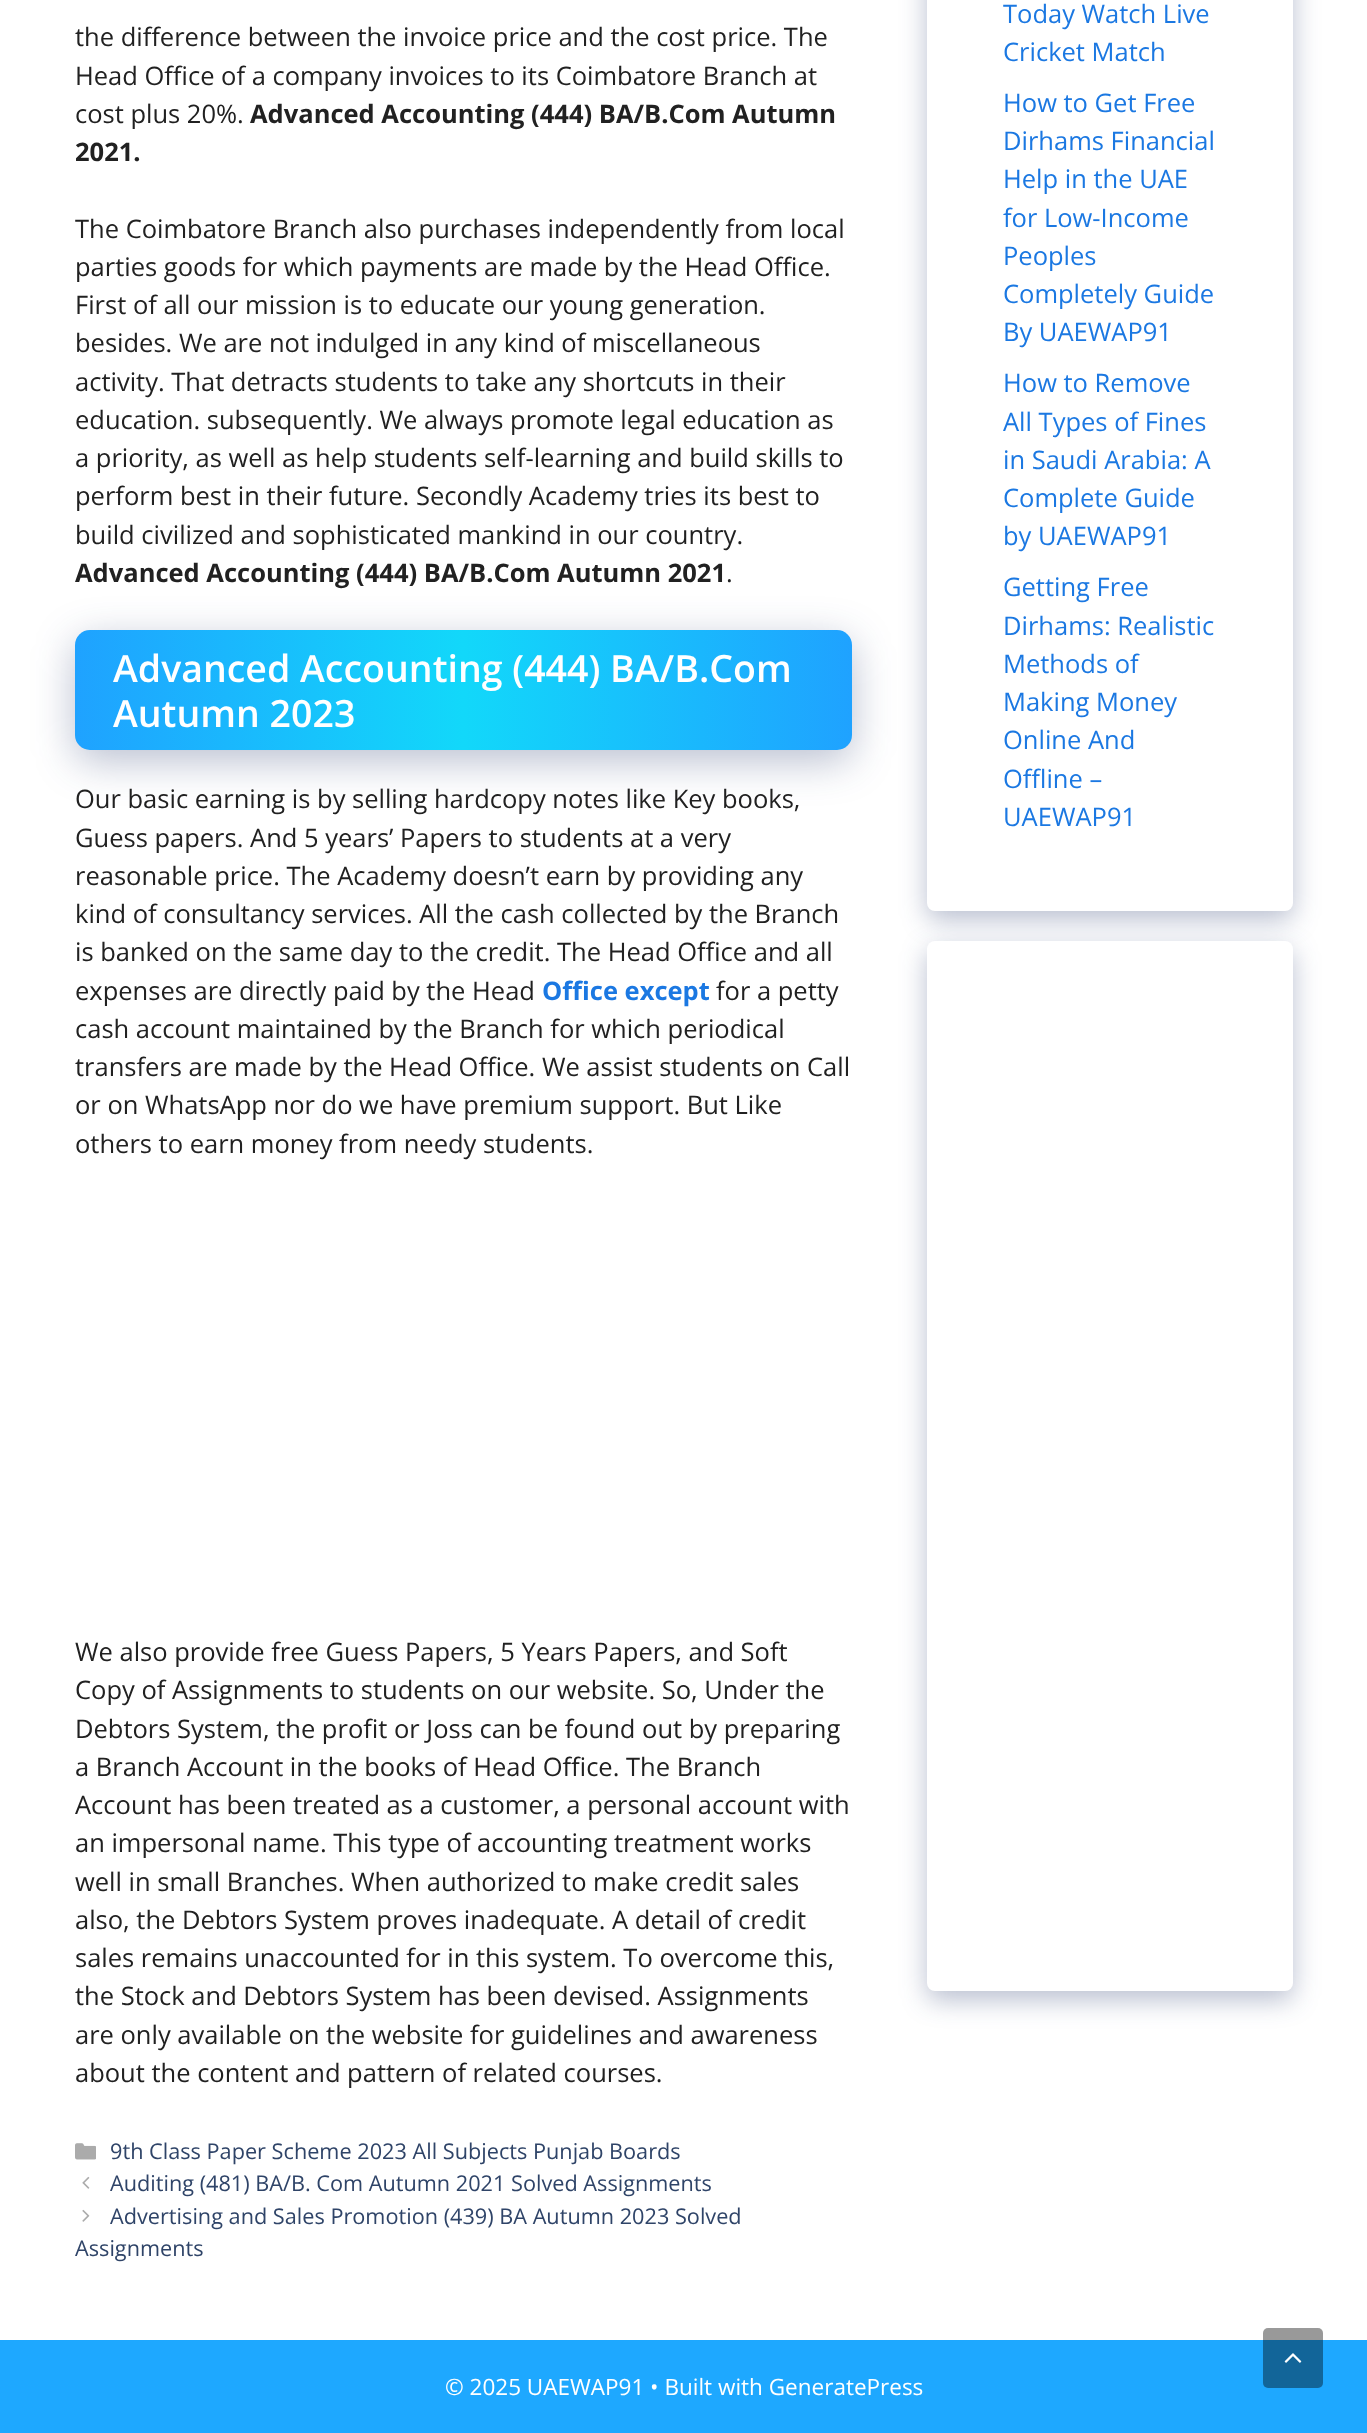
<!DOCTYPE html>
<meta charset="utf-8">
<style>body { margin: 0 } canvas { display: block }</style>
<canvas id="canvas" width="1367" height="2433"></canvas>
<script type="module">
  const canvas = document.getElementById("canvas");
  const g = canvas.getContext("2d");
  g.miterLimit = 4;
  g.fontKerning = "normal";
  function drawText(s, x, y, [font, color]) {
    g.font = font;
    g.fillStyle = color;
    g.fillText(s, x, y);
  }
  function fillBox(x, y, w, h, color) {
    g.fillStyle = color;
    g.fillRect(x, y, w, h);
  }
  function fillRounded(x, y, w, h, r, color) {
    g.fillStyle = color;
    g.beginPath();
    g.roundRect(x, y, w, h, r);
    g.fill();
  }
  async function drawPicture(src, x, y, w, h) {
    const img = new Image();
    img.src = src;
    await img.decode();
    g.drawImage(img, x, y, w, h);
  }
  let gradient;

  const s1 = ["25.5px Open Sans", "#212121"];
  const s2 = ["bold 25.5px Open Sans", "#212121"];
  const s3 = ["600 37.5px Open Sans", "#FFFFFF"];
  const s4 = ["bold 25.5px Open Sans", "#1B78E2"];
  const s5 = ["21.7px Open Sans", "#2F4468"];
  const s6 = ["25.5px Open Sans", "#1B78E2"];
  const s7 = ["22.5px Open Sans", "#FFFFFF"];

  fillBox(0, 0, 1367, 2433, "#FFFFFF");
  drawText("the difference between the invoice price and the cost price. The", 75, 46, s1);
  drawText("Head Office of a company invoices to its Coimbatore Branch at", 75, 85, s1);
  drawText("cost plus 20%.", 75, 123, s1);
  drawText("Advanced Accounting (444) BA/B.Com Autumn", 250, 123, s2);
  drawText("2021.", 75, 161, s2);
  drawText("The Coimbatore Branch also purchases independently from local", 75, 238, s1);
  drawText("parties goods for which payments are made by the Head Office.", 75, 276, s1);
  drawText("First of all our mission is to educate our young generation.", 75, 314, s1);
  drawText("besides. We are not indulged in any kind of miscellaneous", 75, 352, s1);
  drawText("activity. That detracts students to take any shortcuts in their", 75, 391, s1);
  drawText("education. subsequently. We always promote legal education as", 75, 429, s1);
  drawText("a priority, as well as help students self-learning and build skills to", 75, 467, s1);
  drawText("perform best in their future. Secondly Academy tries its best to", 75, 505, s1);
  drawText("build civilized and sophisticated mankind in our country.", 75, 544, s1);
  g.fillStyle = "rgba(23, 43, 99, 0.3)";
  g.filter = "blur(21px)";
  g.beginPath();
  g.roundRect(75, 641, 777, 120, 15);
  g.fill();
  g.filter = "none";
  drawText("Advanced Accounting (444) BA/B.Com Autumn 2021", 75, 582, s2);
  drawText(".", 726, 582, s1);
  gradient = g.createLinearGradient(75, 690, 852, 690);
  gradient.addColorStop(0, "#1FA2FF");
  gradient.addColorStop(0.5, "#12D8FA");
  gradient.addColorStop(1, "#1FA2FF");
  g.fillStyle = gradient;
  g.beginPath();
  g.roundRect(75, 630, 777, 120, 15);
  g.fill();
  drawText("Advanced Accounting (444) BA/B.Com", 113, 682, s3);
  drawText("Autumn 2023", 113, 727, s3);
  drawText("Our basic earning is by selling hardcopy notes like Key books,", 75, 808, s1);
  drawText("Guess papers. And 5 years’ Papers to students at a very", 75, 847, s1);
  drawText("reasonable price. The Academy doesn’t earn by providing any", 75, 885, s1);
  drawText("kind of consultancy services. All the cash collected by the Branch", 75, 923, s1);
  drawText("is banked on the same day to the credit. The Head Office and all", 75, 961, s1);
  drawText("expenses are directly paid by the Head", 75, 1000, s1);
  drawText("Office except", 542, 1000, s4);
  drawText("for a petty", 716, 1000, s1);
  drawText("cash account maintained by the Branch for which periodical", 75, 1038, s1);
  drawText("transfers are made by the Head Office. We assist students on Call", 75, 1076, s1);
  drawText("or on WhatsApp nor do we have premium support. But Like", 75, 1114, s1);
  drawText("others to earn money from needy students.", 75, 1153, s1);
  drawText("We also provide free Guess Papers, 5 Years Papers, and Soft", 75, 1661, s1);
  drawText("Copy of Assignments to students on our website. So, Under the", 75, 1699, s1);
  drawText("Debtors System, the profit or Joss can be found out by preparing", 75, 1738, s1);
  drawText("a Branch Account in the books of Head Office. The Branch", 75, 1776, s1);
  drawText("Account has been treated as a customer, a personal account with", 75, 1814, s1);
  drawText("an impersonal name. This type of accounting treatment works", 75, 1852, s1);
  drawText("well in small Branches. When authorized to make credit sales", 75, 1891, s1);
  drawText("also, the Debtors System proves inadequate. A detail of credit", 75, 1929, s1);
  drawText("sales remains unaccounted for in this system. To overcome this,", 75, 1967, s1);
  drawText("the Stock and Debtors System has been devised. Assignments", 75, 2005, s1);
  drawText("are only available on the website for guidelines and awareness", 75, 2044, s1);
  drawText("about the content and pattern of related courses.", 75, 2082, s1);
  await drawPicture("pic1.png", 75, 2143, 21, 17);
  drawText("9th Class Paper Scheme 2023 All Subjects Punjab Boards", 110, 2159, s5);
  await drawPicture("pic2.png", 82, 2176, 8, 13);
  drawText("Auditing (481) BA/B. Com Autumn 2021 Solved Assignments", 110, 2191, s5);
  await drawPicture("pic3.png", 82, 2209, 8, 13);
  drawText("Advertising and Sales Promotion (439) BA Autumn 2023 Solved", 110, 2224, s5);
  drawText("Assignments", 75, 2256, s5);
  g.fillStyle = "rgba(23, 43, 99, 0.3)";
  g.filter = "blur(13.5px)";
  g.beginPath();
  g.roundRect(927, -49, 366, 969, 8);
  g.fill();
  g.filter = "none";
  fillRounded(927, -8, 366, 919, 8, "#FFFFFF");
  drawText("Today Watch Live", 1003, 23, s6);
  drawText("Cricket Match", 1003, 61, s6);
  drawText("How to Get Free", 1003, 112, s6);
  drawText("Dirhams Financial", 1003, 150, s6);
  drawText("Help in the UAE", 1003, 188, s6);
  drawText("for Low-Income", 1003, 227, s6);
  drawText("Peoples", 1003, 265, s6);
  drawText("Completely Guide", 1003, 303, s6);
  drawText("By UAEWAP91", 1003, 341, s6);
  drawText("How to Remove", 1003, 392, s6);
  drawText("All Types of Fines", 1003, 431, s6);
  drawText("in Saudi Arabia: A", 1003, 469, s6);
  drawText("Complete Guide", 1003, 507, s6);
  drawText("by UAEWAP91", 1003, 545, s6);
  drawText("Getting Free", 1003, 596, s6);
  drawText("Dirhams: Realistic", 1003, 635, s6);
  drawText("Methods of", 1003, 673, s6);
  drawText("Making Money", 1003, 711, s6);
  drawText("Online And", 1003, 749, s6);
  drawText("Offline –", 1003, 788, s6);
  drawText("UAEWAP91", 1003, 826, s6);
  g.fillStyle = "rgba(23, 43, 99, 0.3)";
  g.filter = "blur(13.5px)";
  g.beginPath();
  g.roundRect(927, 950, 366, 1050, 8);
  g.fill();
  g.filter = "none";
  fillRounded(927, 941, 366, 1050, 8, "#FFFFFF");
  fillBox(0, 2340, 1367, 93, "#1EA8FF");
  drawText("© 2025 UAEWAP91 • Built with GeneratePress", 445, 2395, s7);
  fillRounded(1263, 2328, 60, 60, 5, "rgba(0, 0, 0, 0.4)");
  await drawPicture("pic4.png", 1284, 2353, 18, 10);
</script>
